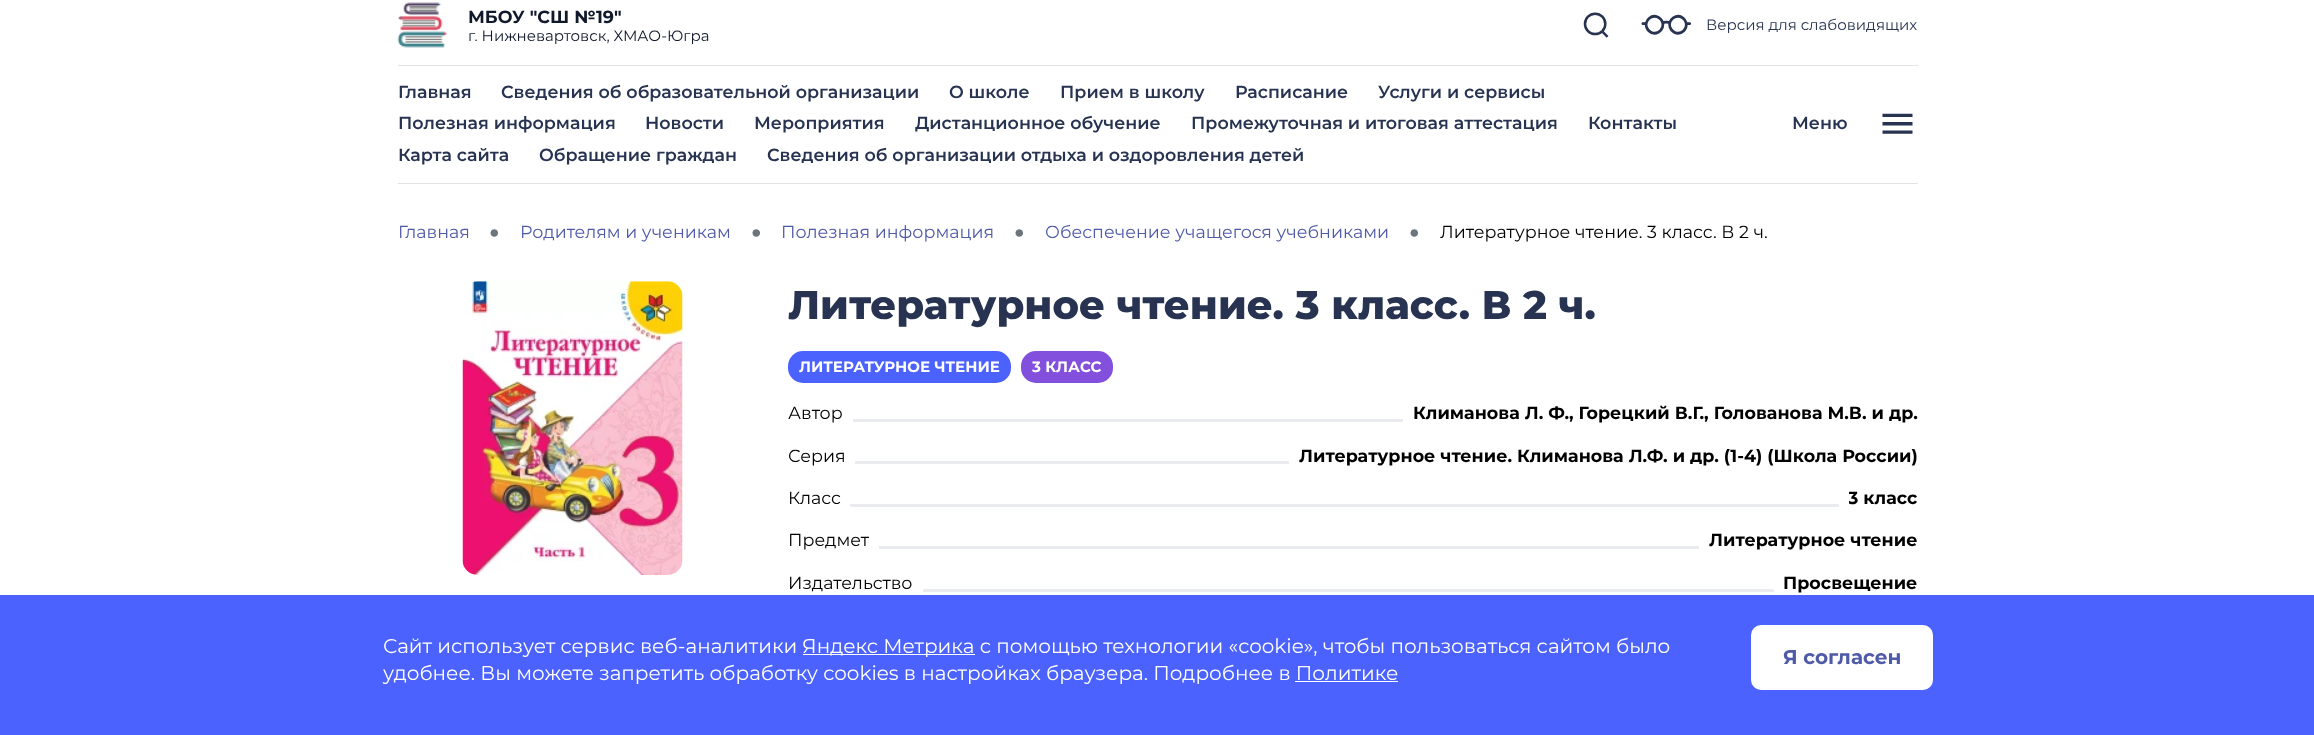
<!DOCTYPE html>
<meta charset="utf-8">
<style>body { margin: 0 } canvas { display: block }</style>
<canvas id="canvas" width="2314" height="735"></canvas>
<script type="module">
  const canvas = document.getElementById("canvas");
  const g = canvas.getContext("2d");
  g.miterLimit = 4;
  g.fontKerning = "normal";
  function drawText(s, x, y, [font, color]) {
    g.font = font;
    g.fillStyle = color;
    g.fillText(s, x, y);
  }
  function fillBox(x, y, w, h, color) {
    g.fillStyle = color;
    g.fillRect(x, y, w, h);
  }
  function fillRounded(x, y, w, h, r, color) {
    g.fillStyle = color;
    g.beginPath();
    g.roundRect(x, y, w, h, r);
    g.fill();
  }
  async function drawPicture(src, x, y, w, h) {
    const img = new Image();
    img.src = src;
    await img.decode();
    g.drawImage(img, x, y, w, h);
  }

  const s1 = ["bold 17.5px Montserrat", "#10182B"];
  const s2 = ["15px Montserrat", "#10182B"];
  const s3 = ["15px Montserrat", "#273350"];
  const s4 = ["600 17.5px Montserrat", "#273350"];
  const s5 = ["17.5px Montserrat", "#4F5AA8"];
  const s6 = ["17.5px Liberation Serif", "#6C757D"];
  const s7 = ["17.5px Montserrat", "#000000"];
  const s8 = ["800 40px Montserrat", "#273350"];
  const s9 = ["bold 15px Montserrat", "#FFFFFF"];
  const s10 = ["bold 17.5px Montserrat", "#000000"];
  const s11 = ["20px Montserrat", "#FFFFFF"];
  const s12 = ["bold 20px Montserrat", "#4F5AA8"];

  fillBox(0, 0, 2314, 735, "#FFFFFF");
  fillBox(398, 65, 1520, 1, "#E3E3E3");
  await drawPicture("pic1.png", 397, 2, 51, 46);
  drawText("МБОУ \"СШ №19\"", 468, 23, s1);
  drawText("г. Нижневартовск, ХМАО-Югра", 468, 41, s2);
  await drawPicture("pic2.png", 1583, 12, 26, 26);
  await drawPicture("pic3.png", 1641, 14, 50, 21);
  drawText("Версия для слабовидящих", 1706, 30, s3);
  fillBox(398, 183, 1520, 1, "#E3E3E3");
  drawText("Главная", 398, 98, s4);
  drawText("Сведения об образовательной организации", 501, 98, s4);
  drawText("О школе", 949, 98, s4);
  drawText("Прием в школу", 1060, 98, s4);
  drawText("Расписание", 1235, 98, s4);
  drawText("Услуги и сервисы", 1378, 98, s4);
  drawText("Полезная информация", 398, 129, s4);
  drawText("Новости", 645, 129, s4);
  drawText("Мероприятия", 754, 129, s4);
  drawText("Дистанционное обучение", 915, 129, s4);
  drawText("Промежуточная и итоговая аттестация", 1191, 129, s4);
  drawText("Контакты", 1588, 129, s4);
  drawText("Карта сайта", 398, 161, s4);
  drawText("Обращение граждан", 539, 161, s4);
  drawText("Сведения об организации отдыха и оздоровления детей", 767, 161, s4);
  drawText("Меню", 1792, 129, s4);
  await drawPicture("pic4.png", 1882, 113, 31, 21);
  drawText("Главная", 398, 238, s5);
  drawText("●", 489, 238, s6);
  drawText("Родителям и ученикам", 520, 238, s5);
  drawText("●", 751, 238, s6);
  drawText("Полезная информация", 781, 238, s5);
  drawText("●", 1014, 238, s6);
  drawText("Обеспечение учащегося учебниками", 1045, 238, s5);
  drawText("●", 1409, 238, s6);
  drawText("Литературное чтение. 3 класс. В 2 ч.", 1440, 238, s7);
  await drawPicture("pic5.png", 462, 281, 221, 294);
  drawText("Литературное чтение. 3 класс. В 2 ч.", 788, 319, s8);
  fillRounded(788, 351, 223, 32, 15, "#4B62FF");
  drawText("ЛИТЕРАТУРНОЕ ЧТЕНИЕ", 799, 372, s9);
  fillRounded(1021, 351, 92, 32, 15, "#8250DC");
  drawText("3 КЛАСС", 1032, 372, s9);
  drawText("Автор", 788, 419, s7);
  fillBox(853, 419, 550, 3, "#E9EBEE");
  drawText("Климанова Л. Ф., Горецкий В.Г., Голованова М.В. и др.", 1413, 419, s10);
  drawText("Серия", 788, 462, s7);
  fillBox(855, 461, 434, 3, "#E9EBEE");
  drawText("Литературное чтение. Климанова Л.Ф. и др. (1-4) (Школа России)", 1299, 462, s10);
  drawText("Класс", 788, 504, s7);
  drawText("3 класс", 1848, 504, s10);
  fillBox(1848, 491, 1, 13, "#FFFFFF");
  fillBox(850, 504, 989, 3, "#E9EBEE");
  drawText("Предмет", 788, 546, s7);
  fillBox(879, 546, 820, 3, "#E9EBEE");
  drawText("Литературное чтение", 1709, 546, s10);
  drawText("Издательство", 788, 589, s7);
  fillBox(923, 589, 851, 3, "#E9EBEE");
  drawText("Просвещение", 1783, 589, s10);
  fillBox(0, 595, 2314, 140, "#4B62FF");
  drawText("Сайт использует сервис веб-аналитики", 383, 653, s11);
  fillBox(803, 654, 172, 1, "#FFFFFF");
  drawText("Яндекс Метрика с помощью технологии «cookie», чтобы пользоваться сайтом было", 802, 653, s11);
  drawText("удобнее. Вы можете запретить обработку cookies в настройках браузера. Подробнее в Политике", 383, 680, s11);
  fillBox(1295, 681, 103, 1, "#FFFFFF");
  fillRounded(1751, 625, 182, 65, 10, "#FFFFFF");
  drawText("Я согласен", 1783, 664, s12);
</script>
